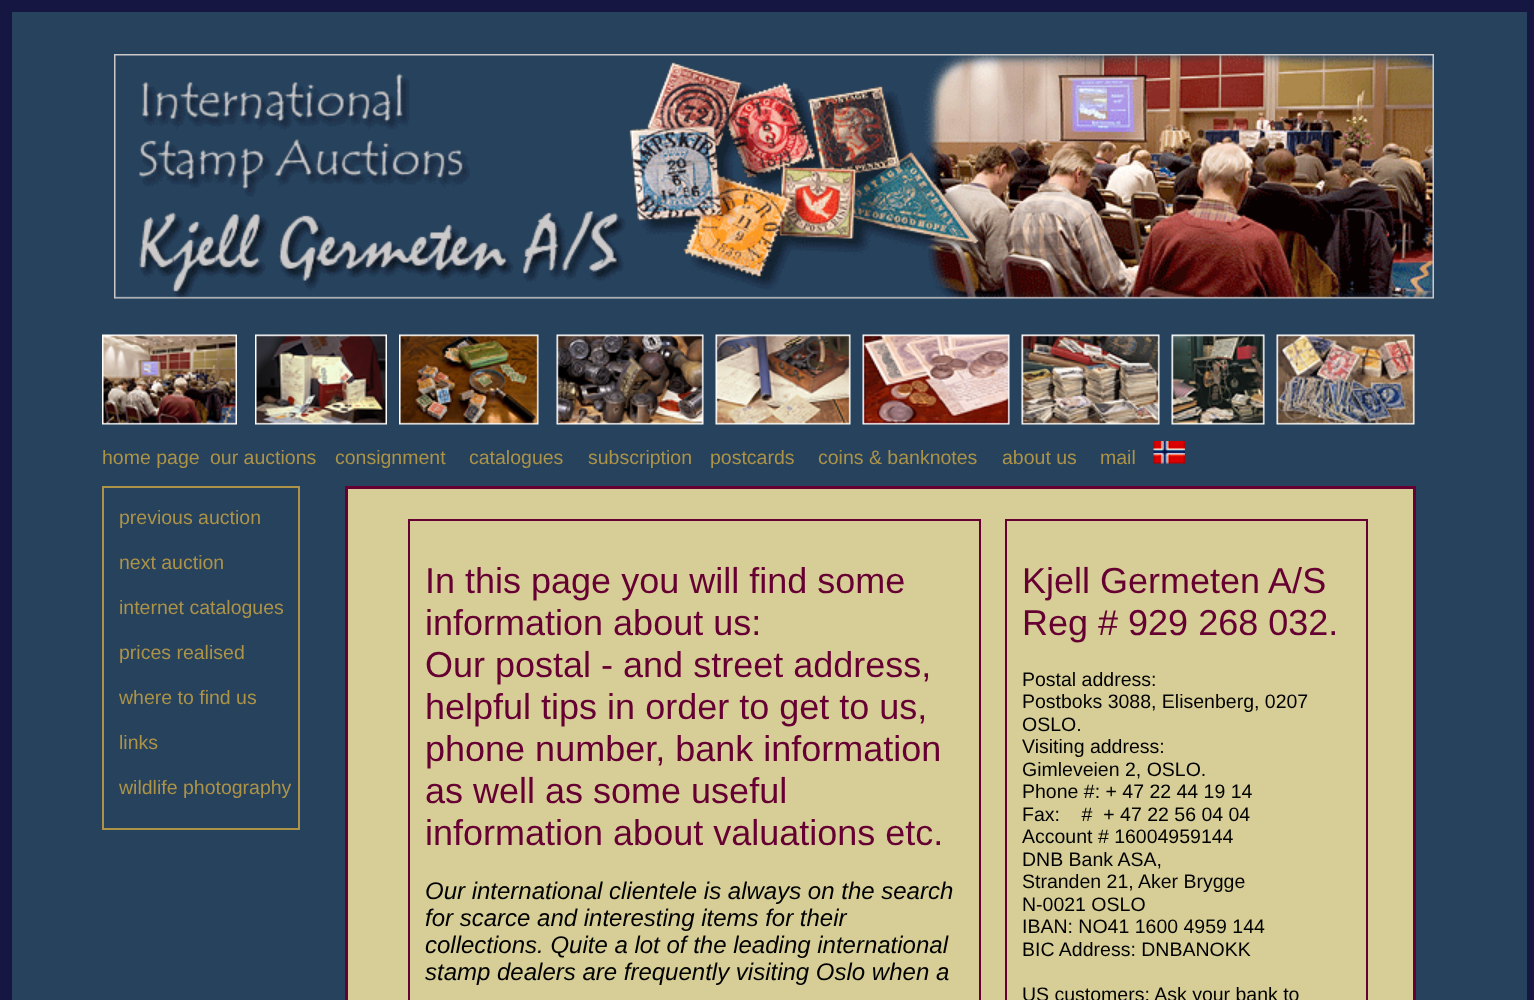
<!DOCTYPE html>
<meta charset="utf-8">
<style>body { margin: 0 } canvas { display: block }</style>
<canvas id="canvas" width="1534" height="1000"></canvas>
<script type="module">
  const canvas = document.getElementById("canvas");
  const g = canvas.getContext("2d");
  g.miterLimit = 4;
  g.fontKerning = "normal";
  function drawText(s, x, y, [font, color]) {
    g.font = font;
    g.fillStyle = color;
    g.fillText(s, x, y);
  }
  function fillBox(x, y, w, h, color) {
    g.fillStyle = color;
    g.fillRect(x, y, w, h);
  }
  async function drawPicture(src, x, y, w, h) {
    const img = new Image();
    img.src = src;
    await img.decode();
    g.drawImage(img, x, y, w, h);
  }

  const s1 = ["19.5px Liberation Sans", "#AC9348"];
  const s2 = ["36px Liberation Sans", "#660033"];
  const s3 = ["italic 24px Liberation Sans", "#000000"];
  const s4 = ["19.5px Liberation Sans", "#000000"];

  fillBox(0, 0, 1534, 1000, "#161642");
  fillBox(12, 12, 1515, 988, "#27425D");
  await drawPicture("pic1.png", 114, 54, 1320, 245);
  await drawPicture("pic2.png", 102, 334, 135, 91);
  await drawPicture("pic3.png", 255, 334, 132, 91);
  await drawPicture("pic4.png", 399, 334, 140, 91);
  await drawPicture("pic5.png", 556, 334, 148, 91);
  await drawPicture("pic6.png", 715, 334, 136, 91);
  await drawPicture("pic7.png", 862, 334, 148, 91);
  await drawPicture("pic8.png", 1021, 334, 139, 91);
  await drawPicture("pic9.png", 1171, 334, 94, 91);
  await drawPicture("pic10.png", 1276, 334, 139, 91);
  drawText("home page", 102, 464, s1);
  drawText("our auctions", 210, 464, s1);
  drawText("consignment", 335, 464, s1);
  drawText("catalogues", 469, 464, s1);
  drawText("subscription", 588, 464, s1);
  drawText("postcards", 710, 464, s1);
  drawText("coins & banknotes", 818, 464, s1);
  drawText("about us", 1002, 464, s1);
  drawText("mail", 1100, 464, s1);
  await drawPicture("pic11.png", 1153, 441, 32, 23);
  g.strokeStyle = "#AC9348";
  g.lineWidth = 2;
  g.strokeRect(103, 487, 196, 342);
  drawText("previous auction", 119, 524, s1);
  drawText("next auction", 119, 569, s1);
  drawText("internet catalogues", 119, 614, s1);
  drawText("prices realised", 119, 659, s1);
  drawText("where to find us", 119, 704, s1);
  drawText("links", 119, 749, s1);
  drawText("wildlife photography", 119, 794, s1);
  g.fillStyle = "#D6CE96";
  g.beginPath();
  g.rect(346.5, 487.5, 1068, 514);
  g.fill();
  g.strokeStyle = "#660033";
  g.lineWidth = 3;
  g.stroke();
  g.lineWidth = 2;
  g.strokeRect(409, 520, 571, 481);
  drawText("In this page you will find some", 425, 593, s2);
  drawText("information about us:", 425, 635, s2);
  drawText("Our postal - and street address,", 425, 677, s2);
  drawText("helpful tips in order to get to us,", 425, 719, s2);
  drawText("phone number, bank information", 425, 761, s2);
  drawText("as well as some useful", 425, 803, s2);
  drawText("information about valuations etc.", 425, 845, s2);
  drawText("Our international clientele is always on the search", 425, 899, s3);
  drawText("for scarce and interesting items for their", 425, 926, s3);
  drawText("collections. Quite a lot of the leading international", 425, 953, s3);
  drawText("stamp dealers are frequently visiting Oslo when a", 425, 980, s3);
  g.strokeRect(1006, 520, 361, 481);
  drawText("Kjell Germeten A/S", 1022, 593, s2);
  drawText("Reg # 929 268 032.", 1022, 635, s2);
  drawText("Postal address:", 1022, 686, s4);
  drawText("Postboks 3088, Elisenberg, 0207", 1022, 708, s4);
  drawText("OSLO.", 1022, 731, s4);
  drawText("Visiting address:", 1022, 753, s4);
  drawText("Gimleveien 2, OSLO.", 1022, 776, s4);
  drawText("Phone #: + 47 22 44 19 14", 1022, 798, s4);
  drawText("Fax:    #  + 47 22 56 04 04", 1022, 821, s4);
  drawText("Account # 16004959144", 1022, 843, s4);
  drawText("DNB Bank ASA,", 1022, 866, s4);
  drawText("Stranden 21, Aker Brygge", 1022, 888, s4);
  drawText("N-0021 OSLO", 1022, 911, s4);
  drawText("IBAN: NO41 1600 4959 144", 1022, 933, s4);
  drawText("BIC Address: DNBANOKK", 1022, 956, s4);
  drawText("US customers: Ask your bank to", 1022, 1001, s4);
</script>
